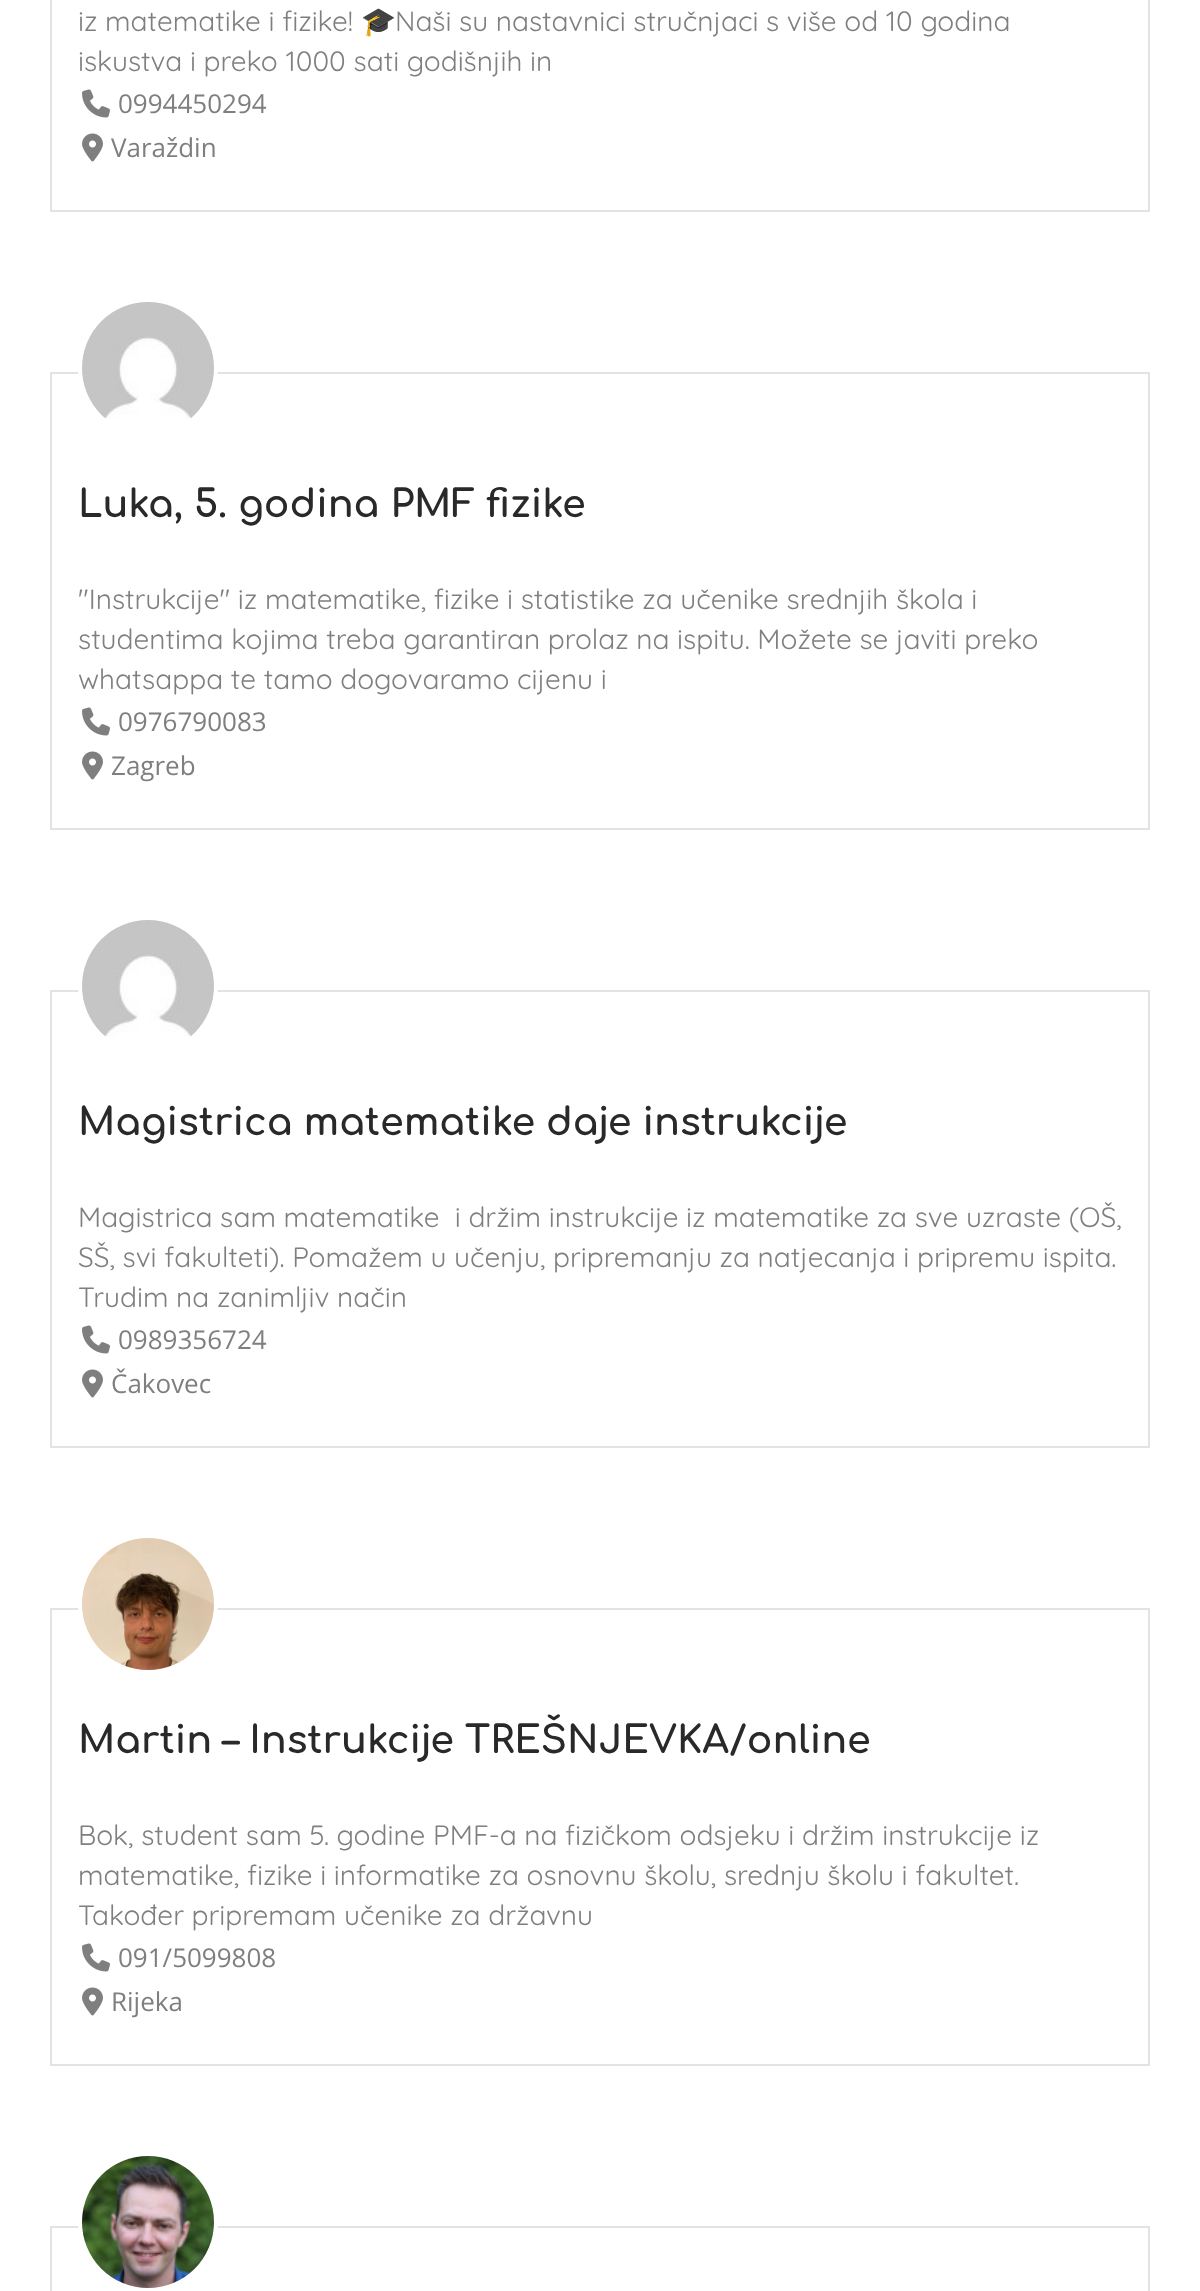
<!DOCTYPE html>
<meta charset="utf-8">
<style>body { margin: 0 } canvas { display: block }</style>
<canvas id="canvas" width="1200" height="2291"></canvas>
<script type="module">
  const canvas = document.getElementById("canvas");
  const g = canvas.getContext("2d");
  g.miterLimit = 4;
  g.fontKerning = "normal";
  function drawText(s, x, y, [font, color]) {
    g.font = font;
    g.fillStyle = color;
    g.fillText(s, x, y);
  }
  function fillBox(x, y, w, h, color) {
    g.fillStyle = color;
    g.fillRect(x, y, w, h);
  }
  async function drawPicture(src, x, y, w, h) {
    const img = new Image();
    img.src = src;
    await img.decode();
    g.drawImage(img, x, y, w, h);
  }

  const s1 = ["28px Quicksand", "#7F7F7F"];
  const s2 = ["28px Noto Color Emoji", "#7F7F7F"];
  const s3 = ["26px Open Sans", "#7F7F7F"];
  const s4 = ["bold 38px Comfortaa", "#292929"];

  fillBox(0, 0, 1200, 2291, "#FFFFFF");
  g.strokeStyle = "#E3E3E3";
  g.lineWidth = 2;
  g.strokeRect(51, -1, 1098, 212);
  drawText("iz matematike i fizike!", 78, 31, s1);
  drawText("🎓", 361, 31, s2);
  drawText("Naši su nastavnici stručnjaci s više od 10 godina", 395, 31, s1);
  drawText("iskustva i preko 1000 sati godišnjih in", 78, 71, s1);
  await drawPicture("pic1.png", 82, 89, 28, 29);
  drawText("0994450294", 118, 113, s3);
  await drawPicture("pic2.png", 82, 133, 21, 29);
  drawText("Varaždin", 111, 157, s3);
  g.strokeRect(51, 373, 1098, 456);
  g.beginPath();
  g.arc(148, 368, 68, 0, Math.PI * 2);
  g.strokeStyle = "#FFFFFF";
  g.lineWidth = 4;
  g.stroke();
  await drawPicture("pic3.png", 82, 302, 132, 117);
  drawText("Luka, 5. godina PMF fizike", 78, 517, s4);
  drawText("\"Instrukcije\" iz matematike, fizike i statistike za učenike srednjih škola i", 78, 609, s1);
  drawText("studentima kojima treba garantiran prolaz na ispitu. Možete se javiti preko", 78, 649, s1);
  drawText("whatsappa te tamo dogovaramo cijenu i", 78, 689, s1);
  await drawPicture("pic1.png", 82, 707, 28, 29);
  drawText("0976790083", 118, 731, s3);
  await drawPicture("pic2.png", 82, 751, 21, 29);
  drawText("Zagreb", 111, 775, s3);
  g.strokeStyle = "#E3E3E3";
  g.lineWidth = 2;
  g.strokeRect(51, 991, 1098, 456);
  g.beginPath();
  g.arc(148, 986, 68, 0, Math.PI * 2);
  g.strokeStyle = "#FFFFFF";
  g.lineWidth = 4;
  g.stroke();
  await drawPicture("pic4.png", 82, 920, 132, 117);
  drawText("Magistrica matematike daje instrukcije", 78, 1135, s4);
  drawText("Magistrica sam matematike  i držim instrukcije iz matematike za sve uzraste (OŠ,", 78, 1227, s1);
  drawText("SŠ, svi fakulteti). Pomažem u učenju, pripremanju za natjecanja i pripremu ispita.", 78, 1267, s1);
  drawText("Trudim na zanimljiv način", 78, 1307, s1);
  await drawPicture("pic1.png", 82, 1325, 28, 29);
  drawText("0989356724", 118, 1349, s3);
  await drawPicture("pic2.png", 82, 1369, 21, 29);
  drawText("Čakovec", 111, 1393, s3);
  g.strokeStyle = "#E3E3E3";
  g.lineWidth = 2;
  g.strokeRect(51, 1609, 1098, 456);
  g.beginPath();
  g.arc(148, 1604, 68, 0, Math.PI * 2);
  g.strokeStyle = "#FFFFFF";
  g.lineWidth = 4;
  g.stroke();
  await drawPicture("pic5.png", 82, 1538, 132, 132);
  drawText("Martin – Instrukcije TREŠNJEVKA/online", 78, 1753, s4);
  drawText("Bok, student sam 5. godine PMF-a na fizičkom odsjeku i držim instrukcije iz", 78, 1845, s1);
  drawText("matematike, fizike i informatike za osnovnu školu, srednju školu i fakultet.", 78, 1885, s1);
  drawText("Također pripremam učenike za državnu", 78, 1925, s1);
  await drawPicture("pic1.png", 82, 1943, 28, 29);
  drawText("091/5099808", 118, 1967, s3);
  await drawPicture("pic2.png", 82, 1987, 21, 29);
  drawText("Rijeka", 111, 2011, s3);
  g.strokeStyle = "#E3E3E3";
  g.lineWidth = 2;
  g.strokeRect(51, 2227, 1098, 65);
  g.beginPath();
  g.arc(148, 2222, 68, 0, Math.PI * 2);
  g.strokeStyle = "#FFFFFF";
  g.lineWidth = 4;
  g.stroke();
  await drawPicture("pic6.png", 82, 2156, 132, 132);
</script>
